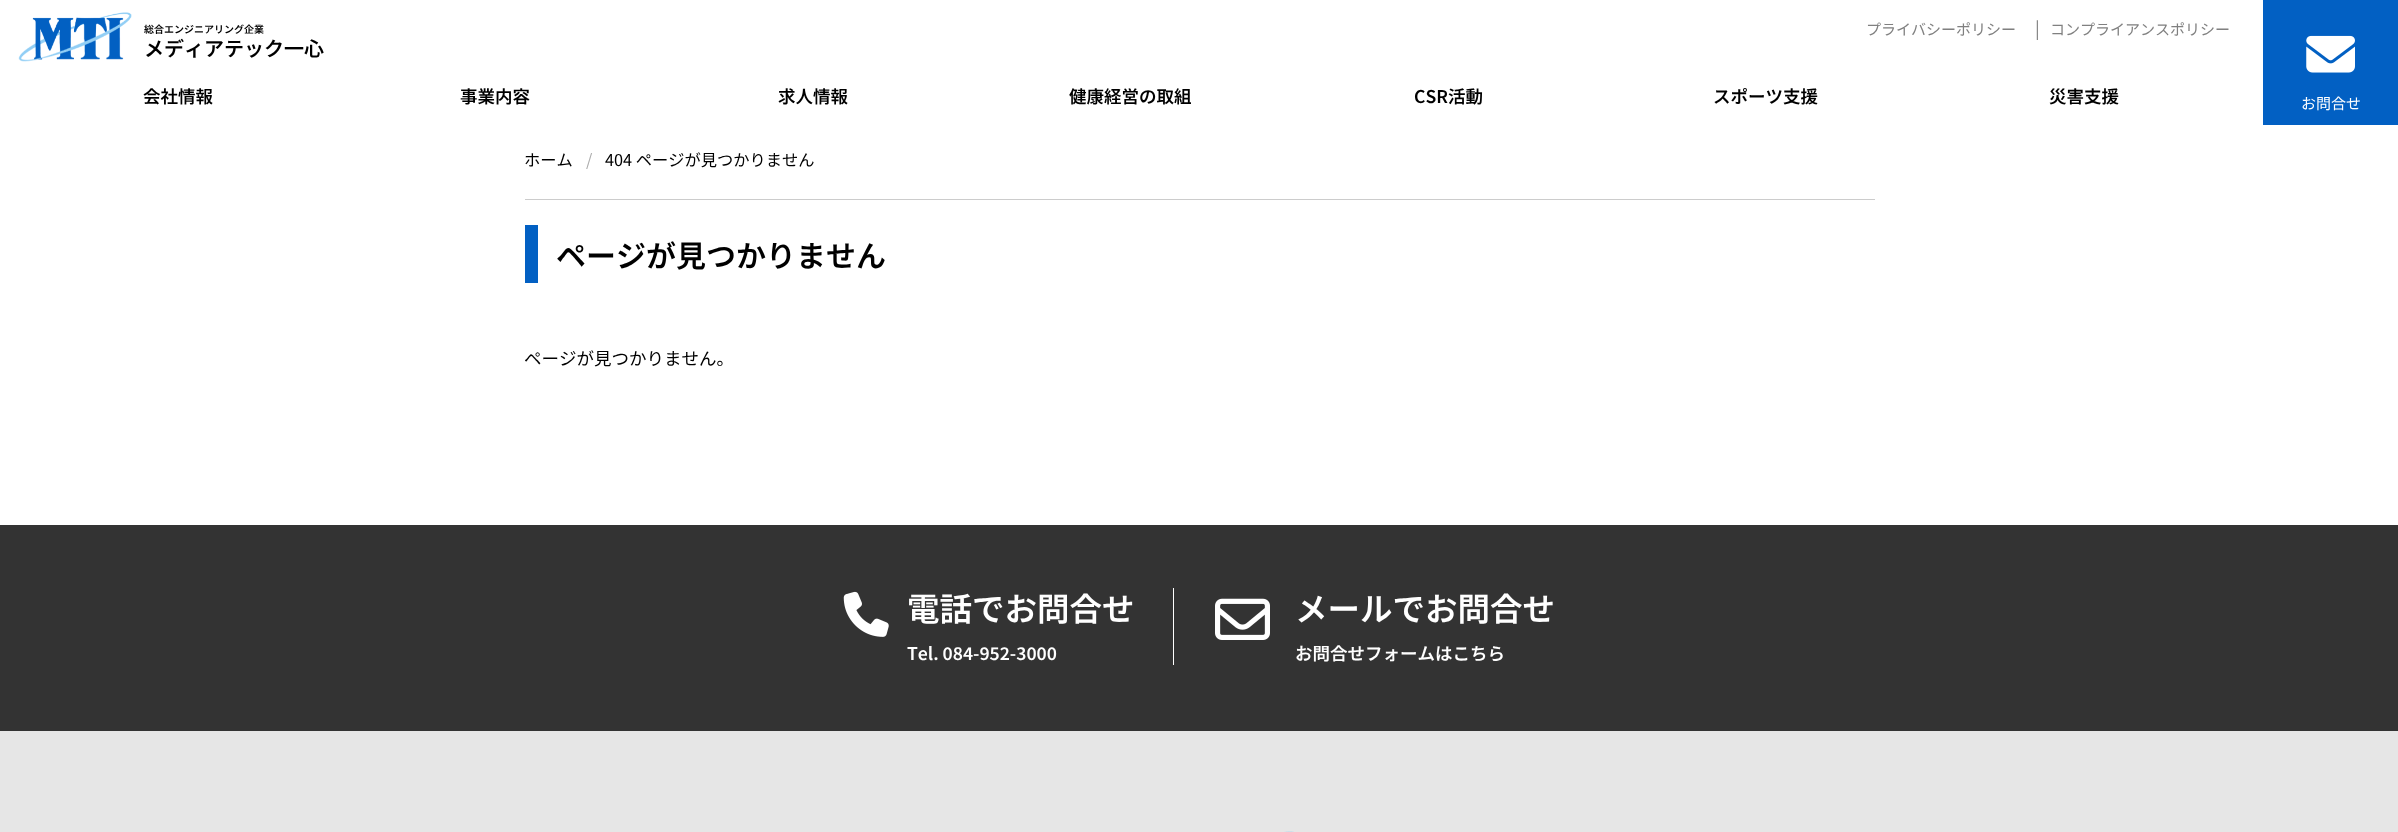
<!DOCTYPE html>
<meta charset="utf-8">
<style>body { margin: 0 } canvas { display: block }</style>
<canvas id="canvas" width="2398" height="832"></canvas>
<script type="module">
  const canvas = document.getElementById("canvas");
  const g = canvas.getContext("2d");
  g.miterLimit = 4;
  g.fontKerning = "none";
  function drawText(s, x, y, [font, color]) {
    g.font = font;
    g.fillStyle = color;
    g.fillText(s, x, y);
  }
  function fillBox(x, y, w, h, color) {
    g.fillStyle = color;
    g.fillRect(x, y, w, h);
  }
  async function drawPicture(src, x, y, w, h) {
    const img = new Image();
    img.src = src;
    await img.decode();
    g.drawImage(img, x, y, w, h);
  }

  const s1 = ["600 10px Noto Sans JP", "#000000"];
  const s2 = ["600 20px Noto Sans JP", "#000000"];
  const s3 = ["15px Noto Sans JP", "#808080"];
  const s4 = ["17.5px Noto Sans JP", "#808080"];
  const s5 = ["600 17.5px Noto Sans JP", "#000000"];
  const s6 = ["15px Noto Sans JP", "#FFFFFF"];
  const s7 = ["16.25px Noto Sans JP", "#000000"];
  const s8 = ["16.25px Noto Sans JP", "#ADADAD"];
  const s9 = ["600 30px Noto Sans JP", "#000000"];
  const s10 = ["17.5px Noto Sans JP", "#000000"];
  const s11 = ["600 32.5px Noto Sans JP", "#FFFFFF"];
  const s12 = ["600 17.5px Noto Sans JP", "#FFFFFF"];

  fillBox(0, 0, 2398, 832, "#FFFFFF");
  await drawPicture("pic1.png", 18, 12, 114, 50);
  drawText("総合エンジニアリング企業", 144, 33, s1);
  drawText("メディアテック一心", 144, 56, s2);
  drawText("プライバシーポリシー", 1866, 35, s3);
  drawText("|", 2035, 35, s4);
  drawText("コンプライアンスポリシー", 2050, 35, s3);
  drawText("会社情報", 143, 103, s5);
  drawText("事業内容", 460, 103, s5);
  drawText("求人情報", 778, 103, s5);
  drawText("健康経営の取組", 1069, 103, s5);
  drawText("CSR活動", 1414, 103, s5);
  drawText("スポーツ支援", 1713, 103, s5);
  drawText("災害支援", 2049, 103, s5);
  fillBox(2263, 0, 135, 125, "#0260C3");
  await drawPicture("pic2.png", 2306, 35, 49, 38);
  drawText("お問合せ", 2301, 109, s6);
  fillBox(525, 199, 1350, 1, "#CCCCCC");
  drawText("ホーム", 524, 166, s7);
  drawText("/", 586, 166, s8);
  drawText("404 ページが見つかりません", 605, 166, s7);
  fillBox(525, 225, 13, 58, "#0260C3");
  drawText("ページが見つかりません", 556, 267, s9);
  drawText("ページが見つかりません。", 524, 365, s10);
  fillBox(0, 525, 2398, 206, "#333333");
  fillBox(1173, 588, 1, 77, "#FFFFFF");
  await drawPicture("pic3.png", 843, 591, 46, 46);
  drawText("電話でお問合せ", 907, 621, s11);
  drawText("Tel. 084-952-3000", 907, 660, s12);
  await drawPicture("pic4.png", 1215, 598, 55, 42);
  drawText("メールでお問合せ", 1295, 621, s11);
  drawText("お問合せフォームはこちら", 1295, 660, s12);
  fillBox(0, 731, 2398, 101, "#E6E6E6");
  await drawPicture("pic5.png", 1284, 831, 10, 1);
</script>
